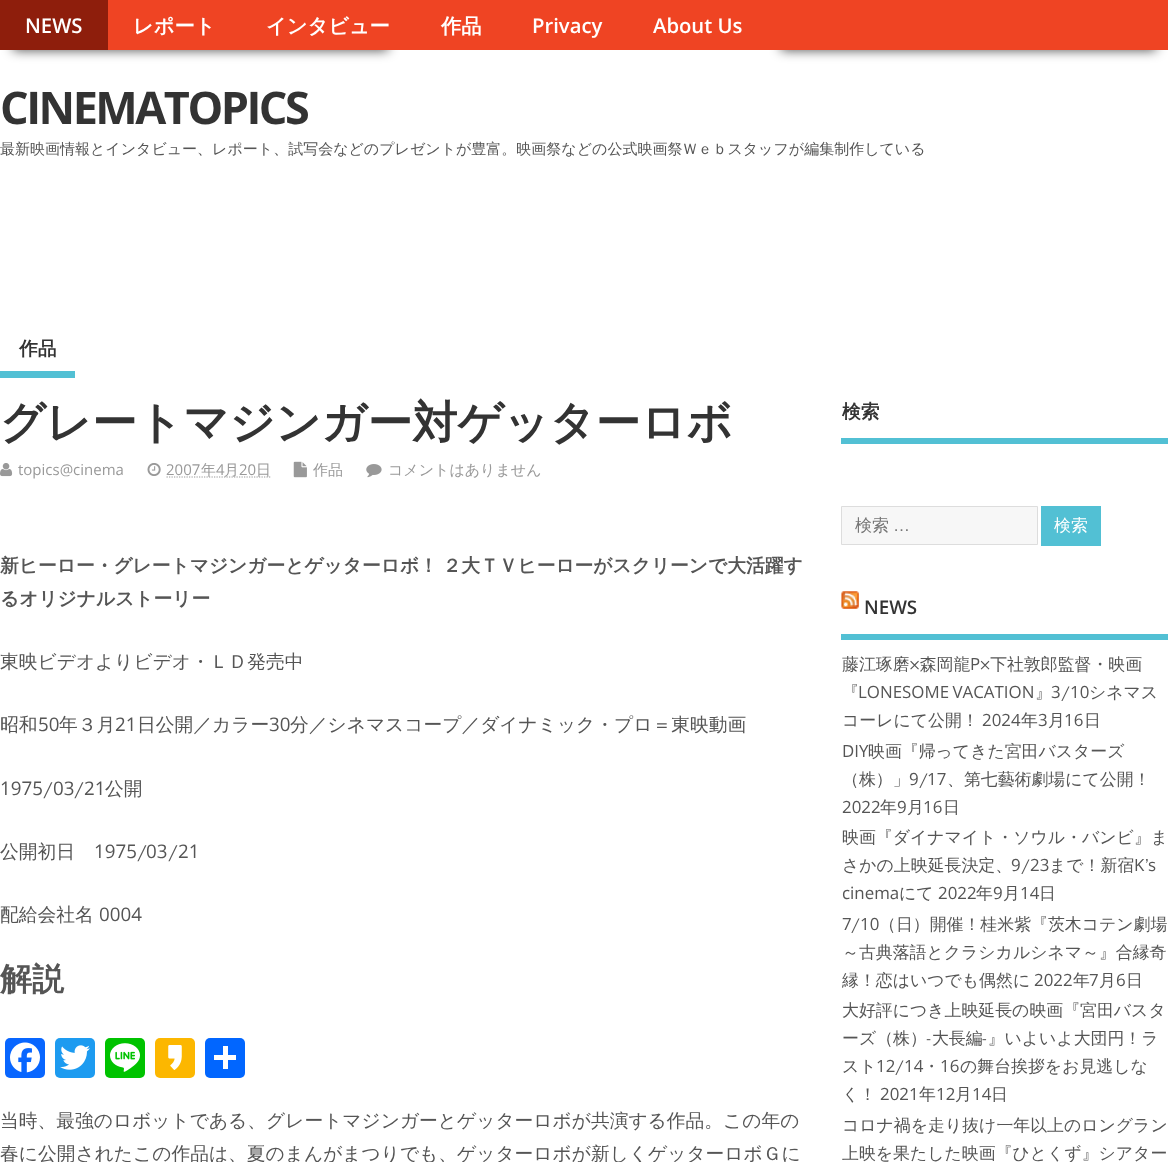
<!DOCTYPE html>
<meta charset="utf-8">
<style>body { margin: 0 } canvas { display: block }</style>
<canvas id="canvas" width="1168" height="1162"></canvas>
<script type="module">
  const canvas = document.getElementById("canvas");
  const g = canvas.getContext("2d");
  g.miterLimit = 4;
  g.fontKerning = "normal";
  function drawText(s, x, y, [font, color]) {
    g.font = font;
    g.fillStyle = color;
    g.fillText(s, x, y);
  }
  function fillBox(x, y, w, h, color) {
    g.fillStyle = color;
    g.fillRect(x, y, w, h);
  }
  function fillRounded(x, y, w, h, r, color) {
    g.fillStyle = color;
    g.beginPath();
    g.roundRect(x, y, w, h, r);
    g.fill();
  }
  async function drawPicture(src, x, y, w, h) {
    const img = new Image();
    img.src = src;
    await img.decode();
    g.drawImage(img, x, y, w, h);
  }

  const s1 = ["600 20.25px Open Sans", "#FFFFFF"];
  const s2 = ["bold 20.25px WenQuanYi Zen Hei", "#FFFFFF"];
  const s3 = ["bold 45px Open Sans", "#333333"];
  const s4 = ["500 15px WenQuanYi Zen Hei", "#555555"];
  const s5 = ["bold 18.75px WenQuanYi Zen Hei", "#333333"];
  const s6 = ["bold 45px WenQuanYi Zen Hei", "#333333"];
  const s7 = ["15px Open Sans", "#999999"];
  const s8 = ["500 15px WenQuanYi Zen Hei", "#999999"];
  const s9 = ["bold 18.75px WenQuanYi Zen Hei", "#555555"];
  const s10 = ["500 18.75px WenQuanYi Zen Hei", "#555555"];
  const s11 = ["18.75px Open Sans", "#555555"];
  const s12 = ["bold 32px WenQuanYi Zen Hei", "#555555"];
  const s13 = ["500 17px WenQuanYi Zen Hei", "#757575"];
  const s14 = ["17px Liberation Sans", "#757575"];
  const s15 = ["500 16.9px WenQuanYi Zen Hei", "#FFFFFF"];
  const s16 = ["600 18.75px Open Sans", "#333333"];
  const s17 = ["500 16.9px WenQuanYi Zen Hei", "#555555"];
  const s18 = ["16.9px Open Sans", "#555555"];

  fillBox(0, 0, 1168, 1162, "#FFFFFF");
  g.fillStyle = "rgba(0, 0, 0, 0.75)";
  g.filter = "blur(6px)";
  g.beginPath();
  g.rect(13, 40, 375, 10);
  g.fill();
  g.filter = "none";
  g.filter = "blur(6px)";
  g.beginPath();
  g.rect(781, 40, 375, 10);
  g.fill();
  g.filter = "none";
  fillBox(108, 0, 1060, 50, "#EF4423");
  fillBox(0, 0, 108, 50, "#8E1E0C");
  drawText("NEWS", 25, 33, s1);
  drawText("レポート", 133, 33, s2);
  drawText("インタビュー", 266, 33, s2);
  drawText("作品", 441, 33, s2);
  drawText("Privacy", 532, 33, s1);
  drawText("About Us", 653, 33, s1);
  g.letterSpacing = "-2.5px";
  drawText("CINEMATOPICS", 0, 124, s3);
  g.letterSpacing = "0px";
  drawText("最新映画情報とインタビュー、レポート、試写会などのプレゼントが豊富。映画祭などの公式映画祭Ｗｅｂスタッフが編集制作している", 0, 154, s4);
  fillBox(0, 371, 75, 7, "#52C0D4");
  drawText("作品", 19, 355, s5);
  drawText("グレートマジンガー対ゲッターロボ", 0, 438, s6);
  await drawPicture("pic1.png", 0, 463, 13, 14);
  drawText("topics@cinema", 18, 475, s7);
  await drawPicture("pic2.png", 147, 463, 14, 13);
  drawText("2007", 166, 475, s7);
  g.beginPath();
  g.moveTo(166.5, 477);
  g.lineTo(271.5, 477);
  g.strokeStyle = "#999999";
  g.lineWidth = 1.2;
  g.setLineDash([1.25, 1.25]);
  g.stroke();
  drawText("年", 201, 475, s8);
  drawText("4", 216, 475, s7);
  drawText("月", 224, 475, s8);
  drawText("20", 239, 475, s7);
  drawText("日", 256, 475, s8);
  await drawPicture("pic3.png", 293, 461, 14, 17);
  drawText("作品", 313, 475, s8);
  await drawPicture("pic4.png", 366, 464, 16, 14);
  drawText("コメントはありません", 388, 475, s8);
  g.wordSpacing = "-1px";
  drawText("新ヒーロー・グレートマジンガーとゲッターロボ！ ２大ＴＶヒーローがスクリーンで大活躍す", 0, 572, s9);
  g.wordSpacing = "0px";
  drawText("るオリジナルストーリー", 0, 605, s9);
  drawText("東映ビデオよりビデオ・ＬＤ発売中", 0, 668, s10);
  drawText("昭和", 0, 731, s10);
  drawText("50", 38, 731, s11);
  drawText("年３月", 59, 731, s10);
  drawText("21", 115, 731, s11);
  drawText("日公開／カラー", 137, 731, s10);
  drawText("30", 269, 731, s11);
  drawText("分／シネマスコープ／ダイナミック・プロ＝東映動画", 290, 731, s10);
  drawText("1975", 0, 795, s11);
  drawText("/", 43, 795, s10);
  drawText("03", 53, 795, s11);
  drawText("/", 74, 795, s10);
  drawText("21", 84, 795, s11);
  drawText("公開", 105, 795, s10);
  drawText("公開初日", 0, 858, s10);
  drawText("1975", 94, 858, s11);
  drawText("/", 137, 858, s10);
  drawText("03", 146, 858, s11);
  drawText("/", 168, 858, s10);
  drawText("21", 178, 858, s11);
  drawText("配給会社名", 0, 921, s10);
  drawText("0004", 99, 921, s11);
  drawText("解説", 0, 990, s12);
  fillRounded(5, 1038, 40, 40, 5, "#0866FF");
  await drawPicture("pic5.png", 10, 1042, 30, 31);
  fillRounded(55, 1038, 40, 40, 5, "#1D9BF0");
  await drawPicture("pic6.png", 60, 1045, 30, 25);
  fillRounded(105, 1038, 40, 40, 5, "#00C300");
  await drawPicture("pic7.png", 110, 1043, 30, 29);
  fillRounded(155, 1038, 40, 40, 5, "#FCB700");
  await drawPicture("pic8.png", 168, 1045, 14, 25);
  fillRounded(205, 1038, 40, 40, 5, "#0166FF");
  fillBox(223, 1046, 5, 23, "#FFFFFF");
  fillBox(214, 1055, 22, 5, "#FFFFFF");
  drawText("当時、最強のロボットである、グレートマジンガーとゲッターロボが共演する作品。この年の", 0, 1127, s10);
  drawText("春に公開されたこの作品は、夏のまんがまつりでも、ゲッターロボが新しくゲッターロボＧに", 0, 1160, s10);
  fillBox(841, 438, 327, 6, "#52C0D4");
  drawText("検索", 842, 418, s5);
  g.fillStyle = "#F7F7F7";
  g.beginPath();
  g.rect(841.5, 506.5, 196, 38);
  g.fill();
  g.strokeStyle = "#DDDDDD";
  g.lineWidth = 1;
  g.setLineDash([]);
  g.stroke();
  drawText("検索", 855, 531, s13);
  drawText("…", 893, 531, s14);
  fillBox(1041, 506, 60, 40, "#52C0D4");
  drawText("検索", 1054, 531, s15);
  fillBox(841, 634, 327, 6, "#52C0D4");
  await drawPicture("pic9.png", 841, 591, 18, 18);
  drawText("NEWS", 864, 614, s16);
  drawText("藤江琢磨×森岡龍", 842, 670, s17);
  drawText("P", 970, 670, s18);
  drawText("×下社敦郎監督・映画", 980, 670, s17);
  drawText("『", 842, 698, s17);
  g.wordSpacing = "-1px";
  drawText("LONESOME VACATION", 858, 698, s18);
  g.wordSpacing = "0px";
  drawText("』", 1035, 698, s17);
  drawText("3", 1051, 698, s18);
  drawText("/", 1061, 698, s17);
  drawText("10", 1070, 698, s18);
  drawText("シネマス", 1089, 698, s17);
  drawText("コーレにて公開！", 842, 726, s17);
  drawText("2024", 982, 726, s18);
  drawText("年", 1021, 726, s17);
  drawText("3", 1038, 726, s18);
  drawText("月", 1048, 726, s17);
  drawText("16", 1064, 726, s18);
  drawText("日", 1084, 726, s17);
  drawText("DIY", 842, 757, s18);
  drawText("映画『帰ってきた宮田バスターズ", 868, 757, s17);
  drawText("（株）」", 842, 785, s17);
  drawText("9", 909, 785, s18);
  drawText("/", 919, 785, s17);
  drawText("17", 927, 785, s18);
  drawText("、第七藝術劇場にて公開！", 947, 785, s17);
  drawText("2022", 842, 813, s18);
  drawText("年", 880, 813, s17);
  drawText("9", 897, 813, s18);
  drawText("月", 907, 813, s17);
  drawText("16", 923, 813, s18);
  drawText("日", 943, 813, s17);
  drawText("映画『ダイナマイト・ソウル・バンビ』ま", 842, 843, s17);
  drawText("さかの上映延長決定、", 842, 871, s17);
  drawText("9", 1011, 871, s18);
  drawText("/", 1021, 871, s17);
  drawText("23", 1030, 871, s18);
  drawText("まで！新宿", 1049, 871, s17);
  drawText("K", 1134, 871, s18);
  drawText("’", 1145, 871, s17);
  drawText("s", 1148, 871, s18);
  drawText("cinema", 842, 899, s18);
  drawText("にて", 899, 899, s17);
  drawText("2022", 938, 899, s18);
  drawText("年", 976, 899, s17);
  drawText("9", 993, 899, s18);
  drawText("月", 1003, 899, s17);
  drawText("14", 1020, 899, s18);
  drawText("日", 1039, 899, s17);
  drawText("7", 842, 930, s18);
  drawText("/", 851, 930, s17);
  drawText("10", 860, 930, s18);
  drawText("（日）開催！桂米紫『茨木コテン劇場", 879, 930, s17);
  drawText("～古典落語とクラシカルシネマ～』合縁奇", 842, 958, s17);
  drawText("縁！恋はいつでも偶然に", 842, 986, s17);
  drawText("2022", 1034, 986, s18);
  drawText("年", 1073, 986, s17);
  drawText("7", 1089, 986, s18);
  drawText("月", 1099, 986, s17);
  drawText("6", 1116, 986, s18);
  drawText("日", 1126, 986, s17);
  drawText("大好評につき上映延長の映画『宮田バスタ", 842, 1016, s17);
  drawText("ーズ（株）-大長編-』いよいよ大団円！ラ", 842, 1044, s17);
  drawText("スト", 842, 1072, s17);
  drawText("12", 876, 1072, s18);
  drawText("/", 895, 1072, s17);
  drawText("14", 904, 1072, s18);
  drawText("・", 923, 1072, s17);
  drawText("16", 940, 1072, s18);
  drawText("の舞台挨拶をお見逃しな", 960, 1072, s17);
  drawText("く！", 842, 1100, s17);
  drawText("2021", 880, 1100, s18);
  drawText("年", 919, 1100, s17);
  drawText("12", 936, 1100, s18);
  drawText("月", 955, 1100, s17);
  drawText("14", 972, 1100, s18);
  drawText("日", 991, 1100, s17);
  drawText("コロナ禍を⾛り抜け⼀年以上のロングラン", 842, 1131, s17);
  drawText("上映を果たした映画『ひとくず』シアター", 842, 1159, s17);
</script>
